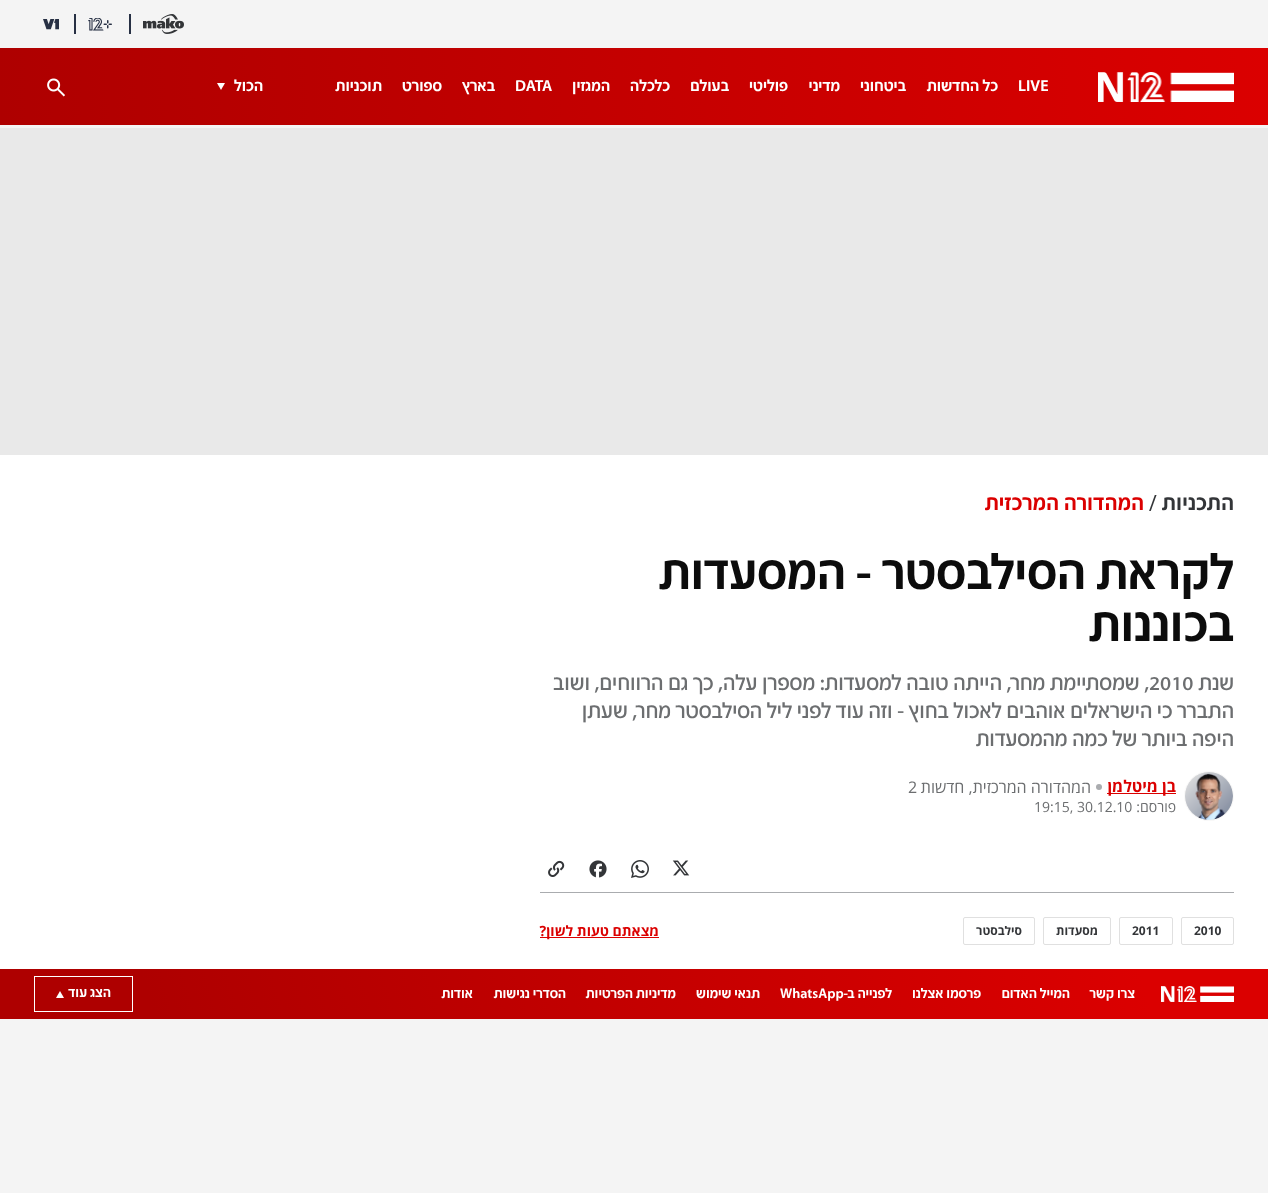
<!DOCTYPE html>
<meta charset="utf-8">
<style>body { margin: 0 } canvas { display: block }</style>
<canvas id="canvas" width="1268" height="1193"></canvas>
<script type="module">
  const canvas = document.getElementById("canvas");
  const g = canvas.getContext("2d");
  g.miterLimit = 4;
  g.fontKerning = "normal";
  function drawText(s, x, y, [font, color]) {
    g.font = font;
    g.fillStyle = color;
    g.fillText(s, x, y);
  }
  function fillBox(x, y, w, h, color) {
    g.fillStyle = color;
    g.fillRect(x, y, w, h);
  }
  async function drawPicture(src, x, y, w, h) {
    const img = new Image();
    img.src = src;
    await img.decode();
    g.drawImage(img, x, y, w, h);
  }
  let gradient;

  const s1 = ["500 16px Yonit", "#FFFFFF"];
  const s2 = ["500 22px Yonit", "#333538"];
  const s3 = ["22px Yonit", "#333538"];
  const s4 = ["500 22px Yonit", "#DB0000"];
  const s5 = ["500 50px Yonit", "#0C0C0C"];
  const s6 = ["22px Yonit", "#6C6E70"];
  const s7 = ["bold 16px Open Sans", "#DB0000"];
  const s8 = ["16px Open Sans", "#6C6E70"];
  const s9 = ["14px Open Sans", "#6C6E70"];
  const s10 = ["bold 12px Open Sans", "#333538"];
  const s11 = ["bold 14px Open Sans", "#DB0000"];
  const s12 = ["500 14px Yonit", "#FFFFFF"];

  fillBox(0, 0, 1268, 1193, "#F4F4F4");
  await drawPicture("pic1.png", 143, 14, 41, 20);
  fillBox(129, 14, 2, 20, "#273044");
  await drawPicture("pic2.png", 88, 18, 24, 13);
  fillBox(74, 14, 2, 20, "#273044");
  await drawPicture("pic3.png", 43, 19, 16, 11);
  gradient = g.createLinearGradient(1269, 64, -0.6, 109);
  gradient.addColorStop(0, "#DB0000");
  gradient.addColorStop(1, "#AE0000");
  g.fillStyle = gradient;
  g.fillRect(0, 48, 1268, 77);
  await drawPicture("pic4.png", 1098, 72, 136, 30);
  drawText("LIVE", 1018, 91, s1);
  g.direction = "rtl";
  drawText("כל החדשות", 998, 91, s1);
  drawText("ביטחוני", 906, 91, s1);
  drawText("מדיני", 840, 91, s1);
  drawText("פוליטי", 788, 91, s1);
  drawText("בעולם", 729, 91, s1);
  drawText("כלכלה", 670, 91, s1);
  drawText("המגזין", 610, 91, s1);
  g.direction = "ltr";
  drawText("DATA", 515, 91, s1);
  g.direction = "rtl";
  drawText("בארץ", 495, 91, s1);
  drawText("ספורט", 442, 91, s1);
  drawText("תוכניות", 382, 91, s1);
  drawText("הכול", 263, 91, s1);
  g.beginPath();
  g.moveTo(217, 83);
  g.lineTo(225, 83);
  g.lineTo(221, 90);
  g.closePath();
  g.fill();
  await drawPicture("pic5.png", 47, 78, 18, 19);
  fillBox(0, 128, 1268, 327, "#E9E9E9");
  fillBox(0, 455, 1268, 514, "#FFFFFF");
  g.letterSpacing = "0.25px";
  drawText("התכניות", 1234, 510, s2);
  g.letterSpacing = "0px";
  g.direction = "ltr";
  drawText("/", 1149, 510, s3);
  g.letterSpacing = "0.25px";
  g.direction = "rtl";
  drawText("המהדורה המרכזית", 1144, 510, s4);
  g.letterSpacing = "0px";
  drawText("לקראת הסילבסטר - המסעדות", 1234, 589, s5);
  drawText("בכוננות", 1234, 641, s5);
  drawText("שנת", 1234, 690, s6);
  g.direction = "ltr";
  drawText("2010", 1149, 690, s6);
  g.direction = "rtl";
  drawText(", שמסתיימת מחר, הייתה טובה למסעדות: מספרן עלה, כך גם הרווחים, ושוב", 1149, 690, s6);
  drawText("התברר כי הישראלים אוהבים לאכול בחוץ - וזה עוד לפני ליל הסילבסטר מחר, שעתן", 1234, 718, s6);
  drawText("היפה ביותר של כמה מהמסעדות", 1234, 746, s6);
  g.fillStyle = "#E0E0E0";
  g.beginPath();
  g.arc(1209, 796, 24.5, 0, Math.PI * 2);
  g.fill();
  g.strokeStyle = "#FAFAFA";
  g.stroke();
  await drawPicture("pic6.png", 1185, 772, 48, 48);
  fillBox(1107, 793, 69, 1, "#DB0000");
  drawText("בן מיטלמן", 1176, 792, s7);
  g.fillStyle = "#AAACAF";
  g.beginPath();
  g.arc(1099, 787, 3, 0, Math.PI * 2);
  g.fill();
  drawText("המהדורה המרכזית, חדשות", 1091, 793, s8);
  g.direction = "ltr";
  drawText("2", 908, 793, s8);
  g.direction = "rtl";
  drawText("פורסם:", 1176, 812, s9);
  g.direction = "ltr";
  drawText("19:15, 30.12.10", 1034, 812, s9);
  fillBox(540, 892, 694, 1, "#AAACAF");
  await drawPicture("pic7.png", 672, 860, 18, 16);
  await drawPicture("pic8.png", 631, 860, 18, 18);
  await drawPicture("pic9.png", 589, 860, 18, 18);
  await drawPicture("pic10.png", 548, 860, 17, 17);
  g.beginPath();
  g.roundRect(1181.5, 917.5, 52, 27, 1.5);
  g.strokeStyle = "#E0E0E0";
  g.stroke();
  drawText("2010", 1194, 935, s10);
  g.beginPath();
  g.roundRect(1119.5, 917.5, 53, 27, 1.5);
  g.stroke();
  drawText("2011", 1132, 935, s10);
  g.beginPath();
  g.roundRect(1043.5, 917.5, 67, 27, 1.5);
  g.stroke();
  g.direction = "rtl";
  drawText("מסעדות", 1098, 935, s10);
  g.beginPath();
  g.roundRect(963.5, 917.5, 71, 27, 1.5);
  g.stroke();
  drawText("סילבסטר", 1022, 935, s10);
  fillBox(540, 937, 119, 1, "#DB0000");
  drawText("מצאתם טעות לשון?", 659, 936, s11);
  gradient = g.createLinearGradient(1229, 829, 39, 1159);
  gradient.addColorStop(0.1, "#DB0000");
  gradient.addColorStop(0.88, "#AE0000");
  g.fillStyle = gradient;
  g.fillRect(0, 969, 1268, 50);
  await drawPicture("pic11.png", 1161, 986, 73, 16);
  drawText("צרו קשר", 1135, 998, s12);
  drawText("המייל האדום", 1070, 998, s12);
  drawText("פרסמו אצלנו", 981, 998, s12);
  drawText("לפנייה ב-", 892, 998, s12);
  g.direction = "ltr";
  drawText("WhatsApp", 780, 998, s12);
  g.direction = "rtl";
  drawText("תנאי שימוש", 760, 998, s12);
  drawText("מדיניות הפרטיות", 676, 998, s12);
  drawText("הסדרי נגישות", 566, 998, s12);
  drawText("אודות", 473, 998, s12);
  g.strokeStyle = "#FFFFFF";
  g.strokeRect(34.5, 976.5, 98, 35);
  drawText("הצג עוד", 111, 997, s12);
  g.beginPath();
  g.moveTo(64, 998);
  g.lineTo(56, 998);
  g.lineTo(60, 991);
  g.closePath();
  g.fill();
</script>
